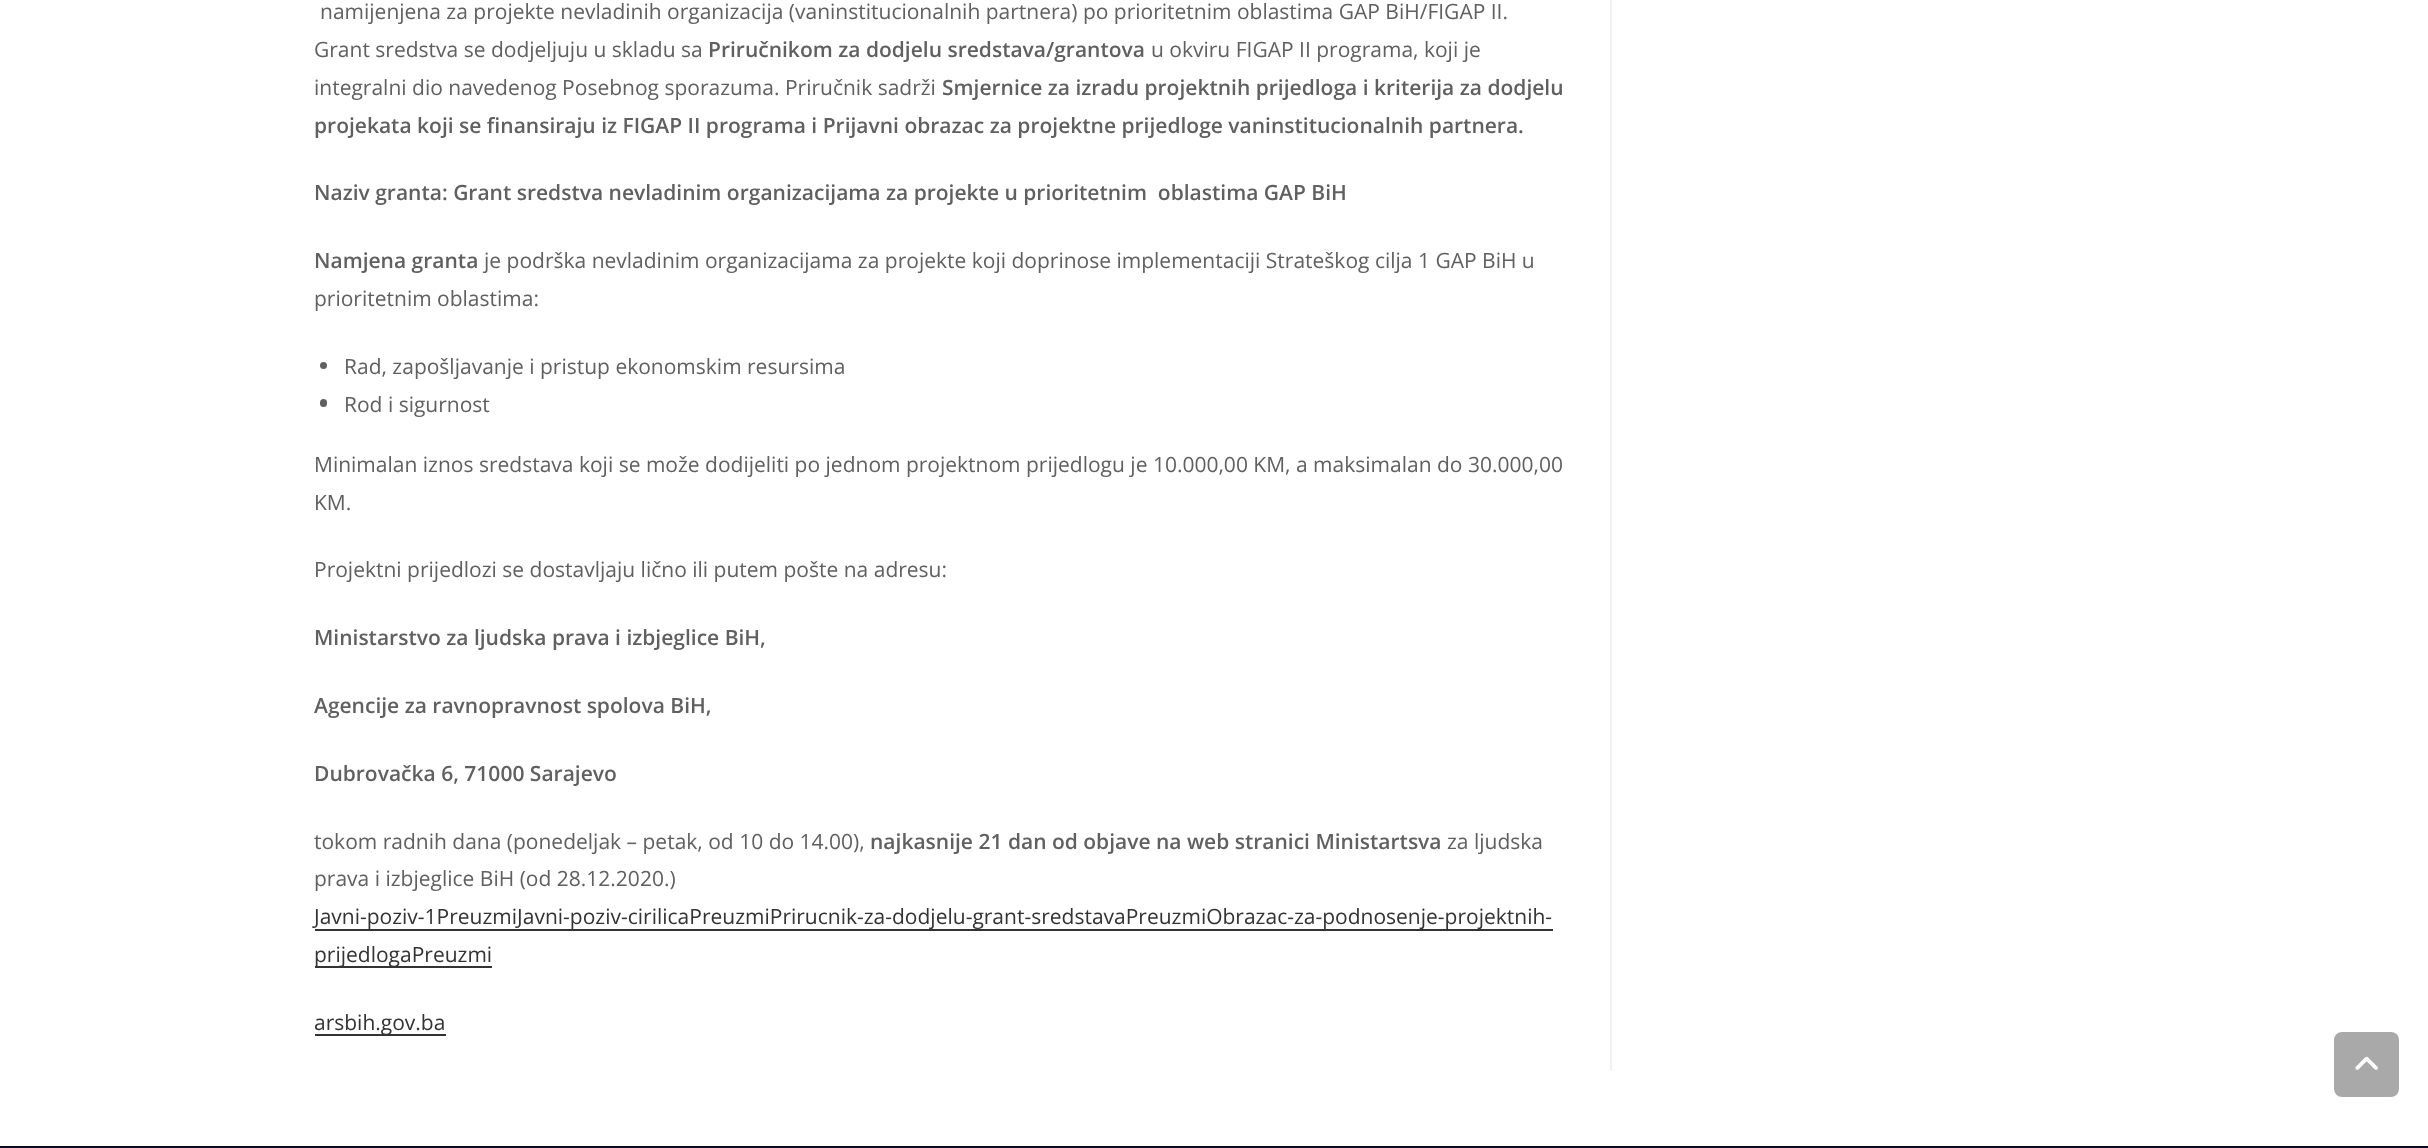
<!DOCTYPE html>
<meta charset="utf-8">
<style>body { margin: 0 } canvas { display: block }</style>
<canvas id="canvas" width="2428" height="1148"></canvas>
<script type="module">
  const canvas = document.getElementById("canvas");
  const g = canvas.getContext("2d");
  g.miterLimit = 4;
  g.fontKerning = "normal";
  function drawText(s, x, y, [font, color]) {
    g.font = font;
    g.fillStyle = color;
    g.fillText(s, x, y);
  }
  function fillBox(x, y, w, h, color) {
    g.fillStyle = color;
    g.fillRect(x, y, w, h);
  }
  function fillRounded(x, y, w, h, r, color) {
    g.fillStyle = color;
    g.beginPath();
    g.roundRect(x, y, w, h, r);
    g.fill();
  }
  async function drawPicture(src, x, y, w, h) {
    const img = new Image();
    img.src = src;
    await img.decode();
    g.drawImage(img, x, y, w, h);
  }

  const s1 = ["21px Open Sans", "#606060"];
  const s2 = ["600 21px Open Sans", "#606060"];
  const s3 = ["21px Open Sans", "#333333"];

  fillBox(0, 0, 2428, 1148, "#0B0A1E");
  fillBox(0, 0, 2428, 1146, "#FFFFFF");
  fillBox(1610, 0, 2, 1071, "#F1F1F1");
  drawText("namijenjena za projekte nevladinih organizacija (vaninstitucionalnih partnera) po prioritetnim oblastima GAP BiH/FIGAP II.", 320, 19, s1);
  drawText("Grant sredstva se dodjeljuju u skladu sa", 314, 57, s1);
  drawText("Priručnikom za dodjelu sredstava/grantova", 708, 57, s2);
  drawText("u okviru FIGAP II programa, koji je", 1151, 57, s1);
  drawText("integralni dio navedenog Posebnog sporazuma. Priručnik sadrži", 314, 95, s1);
  drawText("Smjernice za izradu projektnih prijedloga i kriterija za dodjelu", 942, 95, s2);
  drawText("projekata koji se finansiraju iz FIGAP II programa i Prijavni obrazac za projektne prijedloge vaninstitucionalnih partnera.", 314, 133, s2);
  drawText("Naziv granta: Grant sredstva nevladinim organizacijama za projekte u prioritetnim  oblastima GAP BiH", 314, 200, s2);
  drawText("Namjena granta", 314, 268, s2);
  drawText("je podrška nevladinim organizacijama za projekte koji doprinose implementaciji Strateškog cilja 1 GAP BiH u", 484, 268, s1);
  drawText("prioritetnim oblastima:", 314, 306, s1);
  g.beginPath();
  g.arc(323.5, 365.5, 3.5, 0, Math.PI * 2);
  g.fill();
  drawText("Rad, zapošljavanje i pristup ekonomskim resursima", 344, 374, s1);
  fillRounded(320, 399, 7, 8, 3.5, "#606060");
  drawText("Rod i sigurnost", 344, 412, s1);
  drawText("Minimalan iznos sredstava koji se može dodijeliti po jednom projektnom prijedlogu je 10.000,00 KM, a maksimalan do 30.000,00", 314, 472, s1);
  drawText("KM.", 314, 510, s1);
  drawText("Projektni prijedlozi se dostavljaju lično ili putem pošte na adresu:", 314, 577, s1);
  drawText("Ministarstvo za ljudska prava i izbjeglice BiH,", 314, 645, s2);
  drawText("Agencije za ravnopravnost spolova BiH,", 314, 713, s2);
  drawText("Dubrovačka 6, 71000 Sarajevo", 314, 781, s2);
  drawText("tokom radnih dana (ponedeljak – petak, od 10 do 14.00),", 314, 849, s1);
  drawText("najkasnije 21 dan od objave na web stranici Ministartsva", 870, 849, s2);
  drawText("za ljudska", 1447, 849, s1);
  drawText("prava i izbjeglice BiH (od 28.12.2020.)", 314, 886, s1);
  fillBox(315, 929, 1238, 2, "#333333");
  drawText("Javni-poziv-1PreuzmiJavni-poziv-cirilicaPreuzmiPrirucnik-za-dodjelu-grant-sredstavaPreuzmiObrazac-za-podnosenje-projektnih-", 314, 924, s3);
  fillBox(315, 966, 177, 2, "#333333");
  drawText("prijedlogaPreuzmi", 314, 962, s3);
  fillBox(315, 1034, 131, 2, "#333333");
  drawText("arsbih.gov.ba", 314, 1030, s3);
  fillRounded(2334, 1032, 65, 65, 8, "#A9A9A9");
  await drawPicture("pic1.png", 2355, 1056, 23, 14);
</script>
